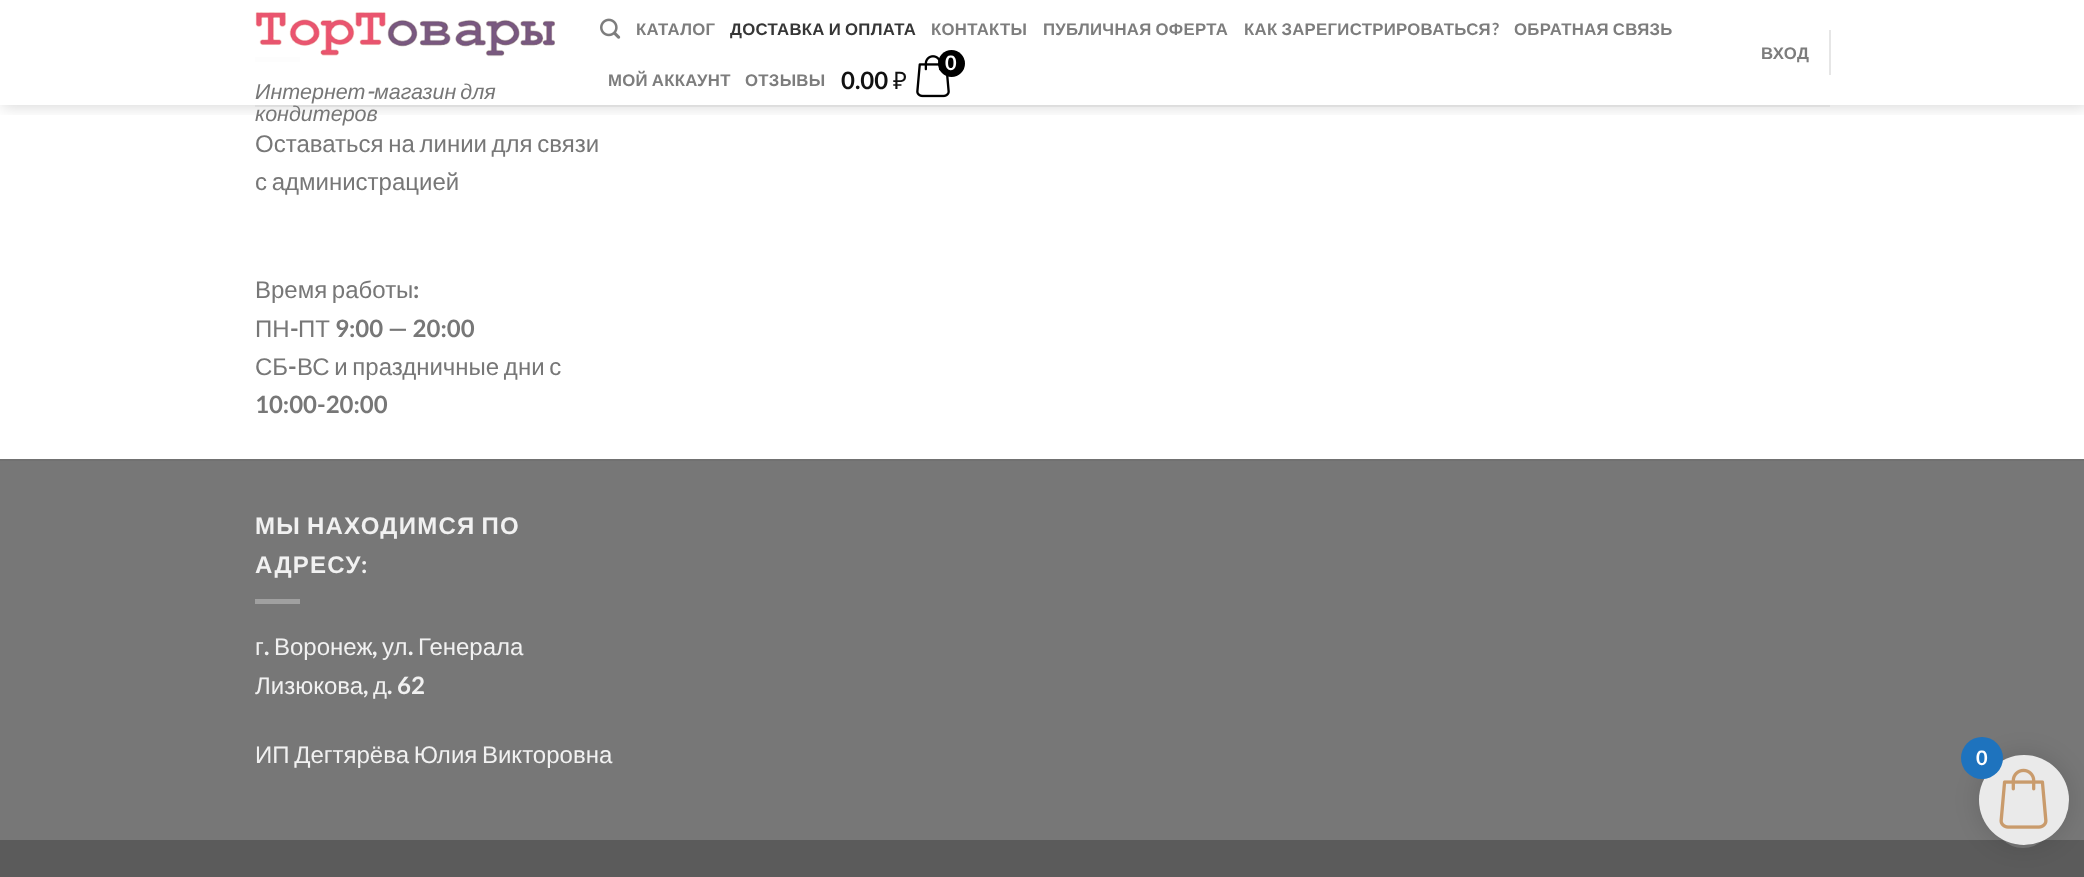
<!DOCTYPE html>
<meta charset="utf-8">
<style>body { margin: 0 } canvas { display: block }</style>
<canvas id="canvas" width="2084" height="877"></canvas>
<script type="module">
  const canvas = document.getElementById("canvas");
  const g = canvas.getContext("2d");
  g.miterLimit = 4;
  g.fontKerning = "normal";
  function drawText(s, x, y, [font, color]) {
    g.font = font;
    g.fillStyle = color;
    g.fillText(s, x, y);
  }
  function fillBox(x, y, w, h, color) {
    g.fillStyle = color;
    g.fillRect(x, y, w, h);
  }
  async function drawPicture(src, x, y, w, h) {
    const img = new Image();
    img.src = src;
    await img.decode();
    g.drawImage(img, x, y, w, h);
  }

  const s1 = ["bold 16.75px Liberation Sans", "#7D7D7D"];
  const s2 = ["bold 16.75px Liberation Sans", "#363636"];
  const s3 = ["bold 16.75px Lato", "#7D7D7D"];
  const s4 = ["bold 20px Lato", "#FFFFFF"];
  const s5 = ["bold 24px Lato", "#111111"];
  const s6 = ["24px Noto Sans", "#111111"];
  const s7 = ["italic 21.5px Liberation Sans", "#777777"];
  const s8 = ["italic bold 21.5px Lato", "#777777"];
  const s9 = ["24px Liberation Sans", "#777777"];
  const s10 = ["bold 24px Lato", "#777777"];
  const s11 = ["bold 24px Liberation Sans", "#F1F1F1"];
  const s12 = ["bold 24px Lato", "#F1F1F1"];
  const s13 = ["24px Liberation Sans", "#F1F1F1"];

  fillBox(0, 0, 2084, 877, "#FFFFFF");
  fillBox(255, 57, 45, 5, "#E6E6E6");
  g.save();
  g.beginPath();
  g.rect(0, 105, 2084, 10);
  g.clip();
  g.fillStyle = "rgba(0, 0, 0, 0.15)";
  g.filter = "blur(7.5px)";
  g.beginPath();
  g.rect(2, 2, 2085, 105);
  g.fill();
  g.filter = "none";
  g.restore();
  await drawPicture("pic1.png", 600, 18, 21, 21);
  g.letterSpacing = "0.3px";
  drawText("КАТАЛОГ", 636, 35, s1);
  g.wordSpacing = "-1px";
  drawText("ДОСТАВКА И ОПЛАТА", 730, 35, s2);
  g.wordSpacing = "0px";
  drawText("КОНТАКТЫ", 931, 35, s1);
  g.wordSpacing = "-1px";
  drawText("ПУБЛИЧНАЯ ОФЕРТА", 1043, 35, s1);
  drawText("КАК ЗАРЕГИСТРИРОВАТЬСЯ", 1244, 35, s1);
  g.wordSpacing = "0px";
  drawText("?", 1492, 35, s3);
  g.wordSpacing = "-1px";
  drawText("ОБРАТНАЯ СВЯЗЬ", 1514, 35, s1);
  drawText("МОЙ АККАУНТ", 608, 86, s1);
  g.wordSpacing = "0px";
  drawText("ОТЗЫВЫ", 745, 86, s1);
  await drawPicture("pic2.png", 916, 55, 34, 43);
  g.fillStyle = "#000000";
  g.beginPath();
  g.arc(951.5, 63.5, 13.5, 0, Math.PI * 2);
  g.fill();
  g.letterSpacing = "0px";
  drawText("0", 945, 70, s4);
  drawText("0.00", 841, 89, s5);
  drawText("₽", 893, 89, s6);
  g.letterSpacing = "0.3px";
  drawText("ВХОД", 1761, 59, s1);
  fillBox(1829, 30, 2, 45, "#E6E6E6");
  await drawPicture("pic3.png", 255, 12, 300, 45);
  g.letterSpacing = "0px";
  drawText("Интернет", 255, 99, s7);
  drawText("-", 366, 99, s8);
  g.wordSpacing = "-2px";
  drawText("магазин для", 374, 99, s7);
  g.wordSpacing = "0px";
  drawText("кондитеров", 255, 121, s7);
  fillBox(255, 105, 1575, 2, "rgba(119, 119, 119, 0.1)");
  fillBox(255, 57, 45, 5, "rgba(255, 255, 255, 0.9)");
  g.wordSpacing = "-2px";
  drawText("Оставаться на линии для связи", 255, 152, s9);
  drawText("с администрацией", 255, 190, s9);
  drawText("Время работы", 255, 298, s9);
  g.wordSpacing = "0px";
  drawText(":", 413, 298, s10);
  drawText("ПН", 255, 337, s9);
  drawText("-", 290, 337, s10);
  drawText("ПТ", 298, 337, s9);
  drawText("9:00 — 20:00", 335, 337, s10);
  drawText("СБ", 255, 375, s9);
  drawText("-", 288, 375, s10);
  g.wordSpacing = "-2px";
  drawText("ВС и праздничные дни с", 297, 375, s9);
  g.wordSpacing = "0px";
  drawText("10:00-20:00", 255, 413, s10);
  fillBox(0, 461, 2084, 379, "#777777");
  fillBox(0, 459, 2084, 2, "#717171");
  g.letterSpacing = "1.25px";
  g.wordSpacing = "-2px";
  drawText("МЫ НАХОДИМСЯ ПО", 255, 534, s11);
  g.wordSpacing = "0px";
  drawText("АДРЕСУ", 255, 573, s11);
  drawText(":", 361, 573, s12);
  fillBox(255, 599, 45, 5, "#A0A0A0");
  g.letterSpacing = "0px";
  drawText("г", 255, 655, s13);
  drawText(".", 264, 655, s12);
  drawText("Воронеж", 274, 655, s13);
  drawText(",", 372, 655, s12);
  drawText("ул", 382, 655, s13);
  drawText(".", 408, 655, s12);
  drawText("Генерала", 418, 655, s13);
  drawText("Лизюкова", 255, 694, s13);
  drawText(",", 363, 694, s12);
  drawText("д", 373, 694, s13);
  drawText(". 62", 387, 694, s12);
  g.wordSpacing = "-2px";
  drawText("ИП Дегтярёва Юлия Викторовна", 255, 763, s13);
  fillBox(0, 840, 2084, 37, "#5B5B5B");
  g.beginPath();
  g.roundRect(1995.5, 790.5, 55, 56, 27.5);
  g.strokeStyle = "#777777";
  g.lineWidth = 3;
  g.stroke();
  g.fillStyle = "rgba(0, 0, 0, 0.1)";
  g.filter = "blur(11px)";
  g.beginPath();
  g.roundRect(1976, 752, 96, 96, 48);
  g.fill();
  g.filter = "none";
  g.fillStyle = "#EAEAEA";
  g.beginPath();
  g.arc(2024, 800, 45, 0, Math.PI * 2);
  g.fill();
  await drawPicture("pic4.png", 1999, 768, 49, 61);
  g.fillStyle = "#1E73BE";
  g.beginPath();
  g.arc(1982, 758, 21, 0, Math.PI * 2);
  g.fill();
  g.wordSpacing = "0px";
  drawText("0", 1976, 765, s4);
</script>
